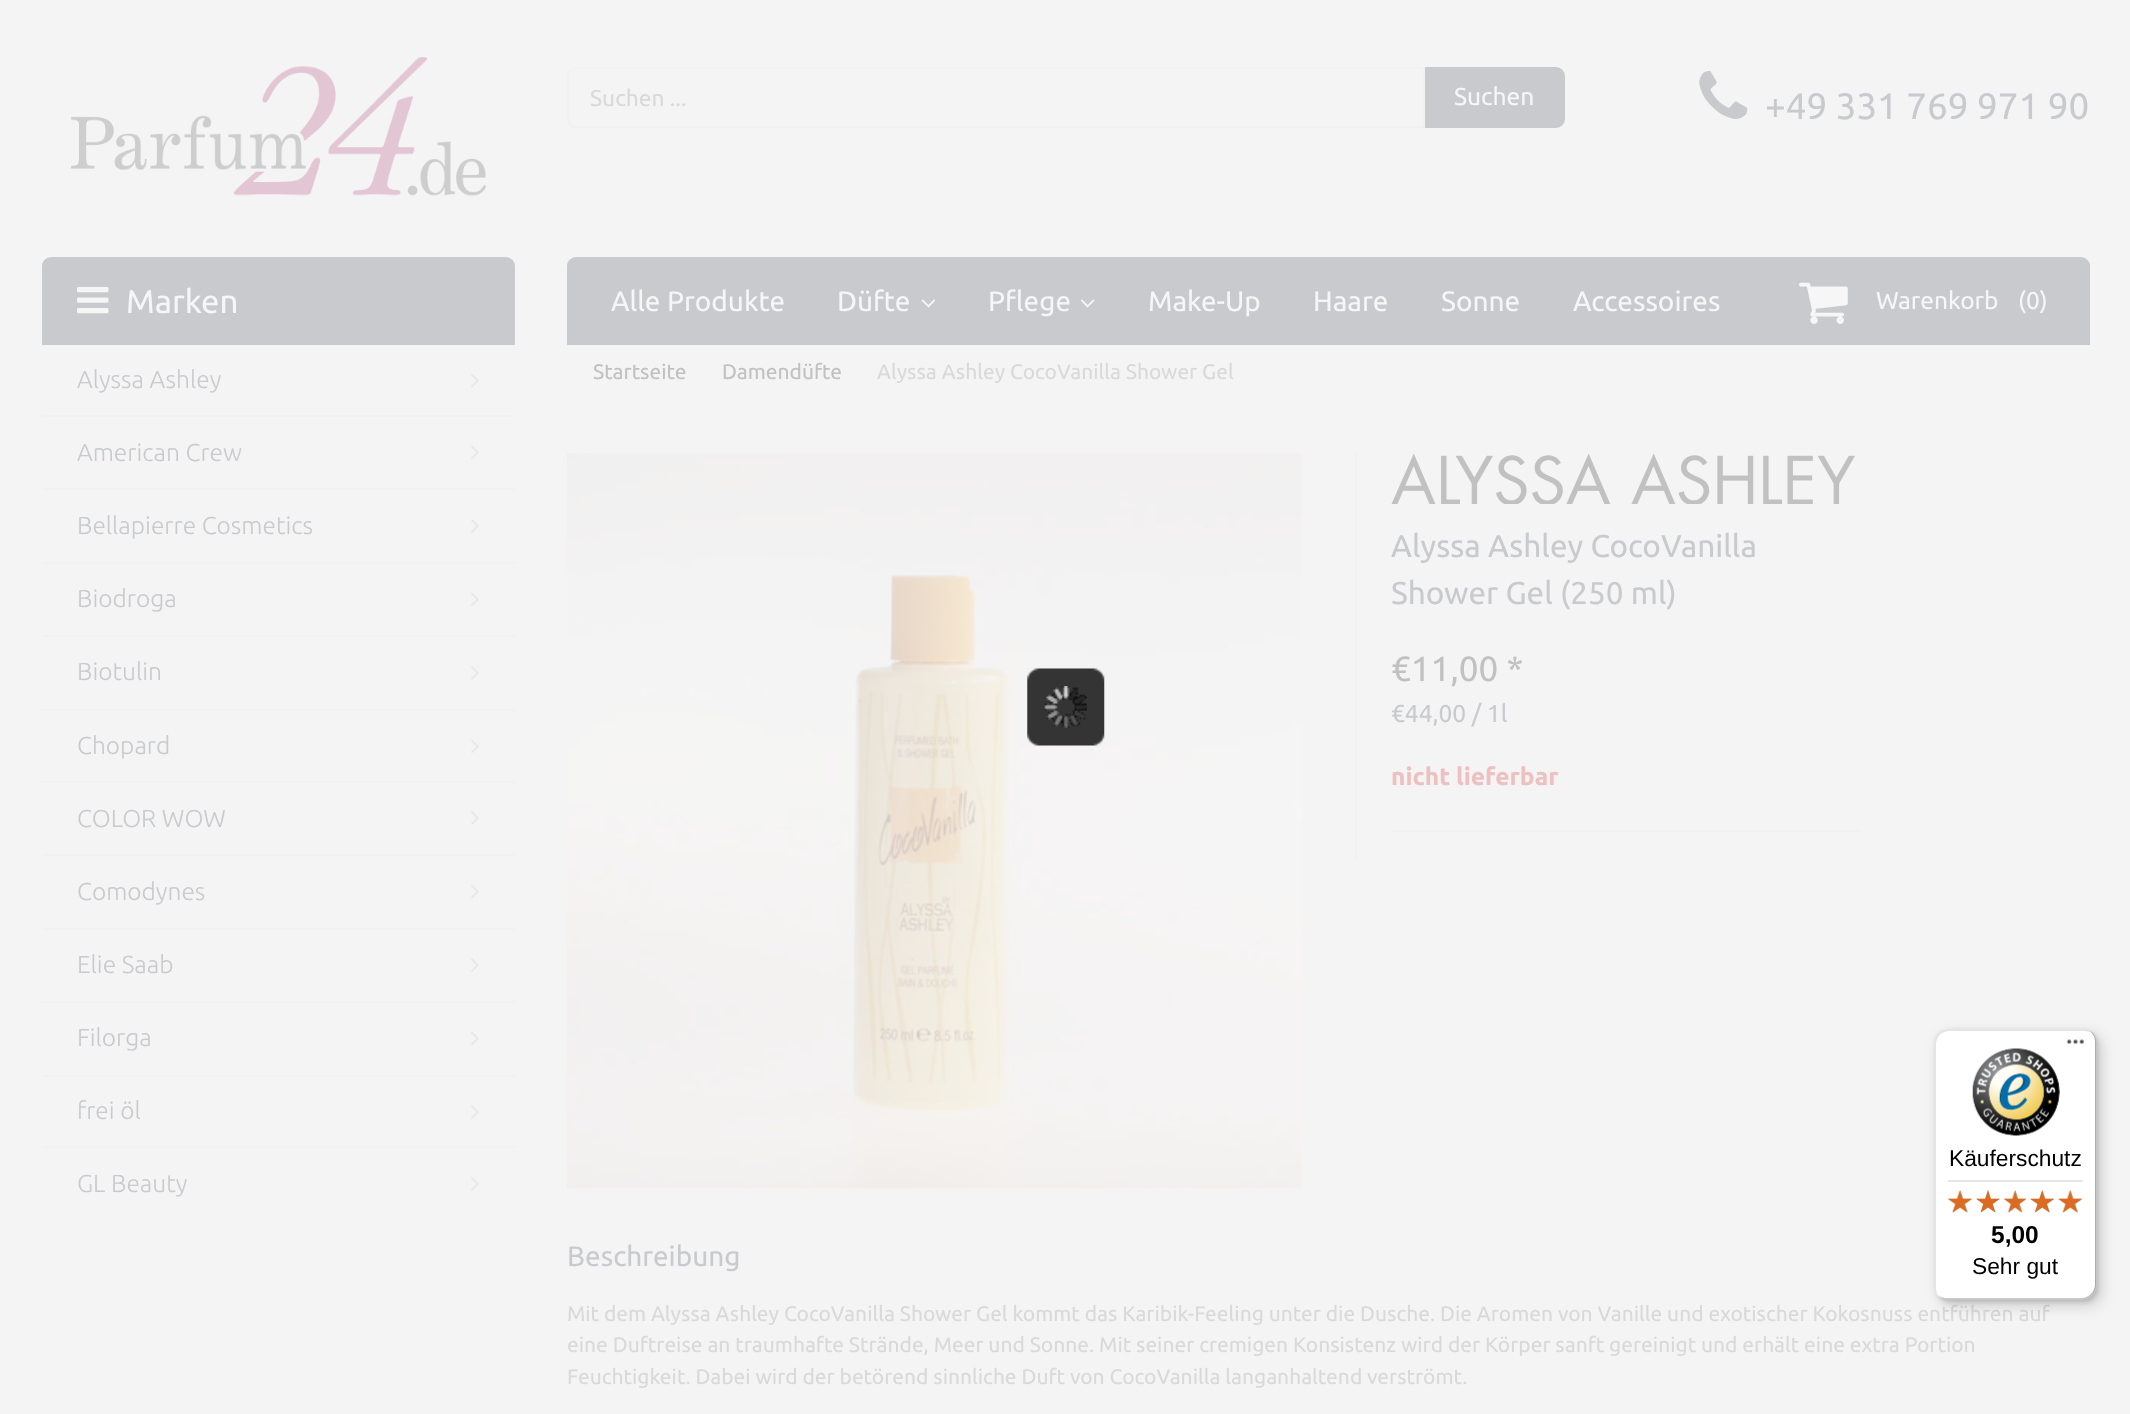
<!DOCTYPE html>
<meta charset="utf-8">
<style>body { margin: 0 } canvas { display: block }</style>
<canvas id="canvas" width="2130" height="1414"></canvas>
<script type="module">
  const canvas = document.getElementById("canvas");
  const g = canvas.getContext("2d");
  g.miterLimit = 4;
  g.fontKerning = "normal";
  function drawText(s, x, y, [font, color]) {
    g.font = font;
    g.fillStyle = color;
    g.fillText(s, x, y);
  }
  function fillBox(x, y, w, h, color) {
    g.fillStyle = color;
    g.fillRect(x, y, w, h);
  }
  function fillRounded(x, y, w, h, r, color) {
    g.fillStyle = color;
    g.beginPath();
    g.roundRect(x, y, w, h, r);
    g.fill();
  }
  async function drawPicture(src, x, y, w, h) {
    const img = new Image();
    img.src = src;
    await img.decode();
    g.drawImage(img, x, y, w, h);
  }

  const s1 = ["22.75px Ubuntu", "#D9D9D9"];
  const s2 = ["24.5px Ubuntu", "#F6F6F6"];
  const s3 = ["36.75px Ubuntu", "#C9CACD"];
  const s4 = ["28px Ubuntu", "#F6F6F6"];
  const s5 = ["33px Ubuntu", "#F6F6F6"];
  const s6 = ["300 24.5px Ubuntu", "#C9CACD"];
  const s7 = ["21px Ubuntu", "#C1C1C1"];
  const s8 = ["21px Ubuntu", "#D9D9D9"];
  const s9 = ["31.5px Ubuntu", "#C9CACD"];
  const s10 = ["35px Ubuntu", "#C1C1C1"];
  const s11 = ["24.5px Ubuntu", "#C9CACD"];
  const s12 = ["bold 24.5px Ubuntu", "#EDC1C1"];
  const s13 = ["28px Ubuntu", "#C9CACD"];
  const s14 = ["22.75px Liberation Sans", "#000000"];
  const s15 = ["bold 24.5px Liberation Sans", "#000000"];

  fillBox(0, 0, 2130, 1414, "#F4F4F4");
  await drawPicture("pic1.png", 71, 57, 416, 139);
  g.beginPath();
  g.roundRect(568, 68, 856, 59, [8, 0, 0, 8]);
  g.strokeStyle = "#F1F1F1";
  g.lineWidth = 2;
  g.stroke();
  drawText("Suchen ...", 590, 106, s1);
  g.fillStyle = "#C9CACD";
  g.beginPath();
  g.roundRect(1425, 67, 140, 61, [0, 9, 9, 0]);
  g.fill();
  drawText("Suchen", 1454, 105, s2);
  await drawPicture("pic2.png", 1699, 70, 49, 49);
  drawText("+49 331 769 971 90", 1765, 119, s3);
  g.beginPath();
  g.roundRect(567, 257, 1523, 88, [9, 18, 0, 0]);
  g.fill();
  drawText("Alle Produkte", 611, 311, s4);
  drawText("Düfte", 837, 311, s4);
  await drawPicture("pic3.png", 921, 299, 15, 9);
  drawText("Pflege", 988, 311, s4);
  await drawPicture("pic4.png", 1080, 299, 15, 9);
  drawText("Make-Up", 1148, 311, s4);
  drawText("Haare", 1313, 311, s4);
  drawText("Sonne", 1441, 311, s4);
  drawText("Accessoires", 1573, 311, s4);
  g.fillStyle = "#C9CACD";
  g.beginPath();
  g.roundRect(1764, 257, 326, 88, [0, 9, 0, 0]);
  g.fill();
  await drawPicture("pic5.png", 1799, 282, 49, 42);
  drawText("Warenkorb", 1876, 309, s2);
  drawText("(0)", 2018, 309, s2);
  g.fillStyle = "#C9CACD";
  g.beginPath();
  g.roundRect(42, 257, 473, 88, [9, 9, 0, 0]);
  g.fill();
  await drawPicture("pic6.png", 77, 287, 32, 27);
  drawText("Marken", 126, 313, s5);
  drawText("Alyssa Ashley", 77, 388, s6);
  await drawPicture("pic7.png", 471, 374, 8, 14);
  fillBox(42, 415, 473, 2, "#F1F1F1");
  drawText("American Crew", 77, 461, s6);
  await drawPicture("pic8.png", 471, 445, 8, 14);
  fillBox(42, 488, 473, 2, "#F1F1F1");
  drawText("Bellapierre Cosmetics", 77, 534, s6);
  await drawPicture("pic9.png", 471, 519, 8, 14);
  fillBox(42, 562, 473, 2, "#F1F1F1");
  drawText("Biodroga", 77, 607, s6);
  await drawPicture("pic8.png", 471, 592, 8, 14);
  fillBox(42, 635, 473, 2, "#F1F1F1");
  drawText("Biotulin", 77, 680, s6);
  await drawPicture("pic9.png", 471, 666, 8, 14);
  fillBox(42, 709, 473, 2, "#F1F1F1");
  drawText("Chopard", 77, 754, s6);
  await drawPicture("pic8.png", 471, 739, 8, 14);
  fillBox(42, 781, 473, 2, "#F1F1F1");
  drawText("COLOR WOW", 77, 827, s6);
  await drawPicture("pic10.png", 471, 811, 8, 14);
  fillBox(42, 854, 473, 2, "#F1F1F1");
  drawText("Comodynes", 77, 900, s6);
  await drawPicture("pic7.png", 471, 885, 8, 14);
  fillBox(42, 928, 473, 2, "#F1F1F1");
  drawText("Elie Saab", 77, 973, s6);
  await drawPicture("pic10.png", 471, 958, 8, 14);
  fillBox(42, 1001, 473, 2, "#F1F1F1");
  drawText("Filorga", 77, 1046, s6);
  await drawPicture("pic7.png", 471, 1032, 8, 14);
  fillBox(42, 1075, 473, 2, "#F1F1F1");
  drawText("frei öl", 77, 1119, s6);
  await drawPicture("pic10.png", 471, 1105, 8, 14);
  fillBox(42, 1146, 473, 2, "#F1F1F1");
  drawText("GL Beauty", 77, 1192, s6);
  await drawPicture("pic9.png", 471, 1177, 8, 14);
  drawText("Startseite", 593, 379, s7);
  drawText("Damendüfte", 722, 379, s7);
  drawText("Alyssa Ashley CocoVanilla Shower Gel", 877, 379, s8);
  await drawPicture("pic11.png", 567, 453, 735, 736);
  fillBox(1355, 453, 2, 408, "#F1F1F1");
  await drawPicture("pic12.png", 1391, 453, 464, 51);
  drawText("Alyssa Ashley CocoVanilla", 1391, 557, s9);
  drawText("Shower Gel (250 ml)", 1391, 604, s9);
  drawText("€11,00 *", 1391, 681, s10);
  drawText("€44,00 / 1l", 1391, 722, s11);
  drawText("nicht lieferbar", 1391, 785, s12);
  fillBox(1391, 830, 471, 2, "#F1F1F1");
  drawText("Beschreibung", 567, 1266, s13);
  drawText("Mit dem Alyssa Ashley CocoVanilla Shower Gel kommt das Karibik-Feeling unter die Dusche. Die Aromen von Vanille und exotischer Kokosnuss entführen auf", 567, 1321, s8);
  drawText("eine Duftreise an traumhafte Strände, Meer und Sonne. Mit seiner cremigen Konsistenz wird der Körper sanft gereinigt und erhält eine extra Portion", 567, 1352, s8);
  drawText("Feuchtigkeit. Dabei wird der betörend sinnliche Duft von CocoVanilla langanhaltend verströmt.", 567, 1384, s8);
  await drawPicture("pic13.png", 1027, 668, 78, 78);
  await drawPicture("pic14.png", 1044, 686, 43, 42);
  g.fillStyle = "rgba(0, 0, 0, 0.15)";
  g.filter = "blur(7px)";
  g.beginPath();
  g.roundRect(1939, 1034, 163, 272, 14);
  g.fill();
  g.filter = "none";
  g.filter = "blur(2px)";
  g.beginPath();
  g.roundRect(1936, 1031, 162, 271, 14);
  g.fill();
  g.filter = "none";
  fillRounded(1934, 1029, 163, 271, 14, "#FFFFFF");
  g.fillStyle = "rgba(0, 0, 0, 0.1)";
  g.beginPath();
  g.moveTo(1950, 1031);
  g.lineTo(2084, 1031);
  g.bezierCurveTo(2089, 1031, 2093, 1033, 2096, 1037);
  g.bezierCurveTo(2093, 1032, 2089, 1029, 2083, 1029);
  g.lineTo(1948, 1029);
  g.bezierCurveTo(1940, 1029, 1934, 1035, 1934, 1043);
  g.lineTo(1934, 1286);
  g.bezierCurveTo(1934, 1290, 1936, 1294, 1939, 1296);
  g.bezierCurveTo(1937, 1294, 1936, 1291, 1936, 1288);
  g.lineTo(1936, 1045);
  g.bezierCurveTo(1936, 1037, 1942, 1031, 1950, 1031);
  g.closePath();
  g.fill();
  g.fillStyle = "rgba(0, 0, 0, 0.2)";
  g.beginPath();
  g.moveTo(1938, 1295);
  g.bezierCurveTo(1940, 1298, 1944, 1300, 1948, 1300);
  g.lineTo(2083, 1300);
  g.bezierCurveTo(2091, 1300, 2097, 1294, 2097, 1286);
  g.lineTo(2097, 1043);
  g.bezierCurveTo(2097, 1038, 2094, 1033, 2090, 1031);
  g.bezierCurveTo(2093, 1034, 2095, 1037, 2095, 1041);
  g.lineTo(2095, 1284);
  g.bezierCurveTo(2095, 1292, 2088, 1298, 2081, 1298);
  g.lineTo(1946, 1298);
  g.bezierCurveTo(1943, 1298, 1940, 1297, 1938, 1295);
  g.closePath();
  g.fill();
  g.fillStyle = "rgba(50, 50, 50, 0.2)";
  g.beginPath();
  g.moveTo(1939, 1296);
  g.bezierCurveTo(1941, 1299, 1944, 1300, 1948, 1300);
  g.lineTo(2083, 1300);
  g.bezierCurveTo(2091, 1300, 2097, 1294, 2097, 1286);
  g.lineTo(2097, 1043);
  g.bezierCurveTo(2097, 1037, 2094, 1033, 2089, 1030);
  g.bezierCurveTo(2093, 1033, 2095, 1037, 2095, 1042);
  g.lineTo(2095, 1285);
  g.bezierCurveTo(2095, 1293, 2089, 1299, 2081, 1299);
  g.lineTo(1947, 1299);
  g.bezierCurveTo(1944, 1299, 1941, 1298, 1939, 1296);
  g.closePath();
  g.fill();
  g.fillStyle = "rgba(255, 255, 255, 0.3)";
  g.beginPath();
  g.moveTo(1939, 1296);
  g.bezierCurveTo(1941, 1299, 1944, 1300, 1948, 1300);
  g.lineTo(2083, 1300);
  g.bezierCurveTo(2091, 1300, 2097, 1294, 2097, 1286);
  g.lineTo(2097, 1043);
  g.bezierCurveTo(2097, 1038, 2095, 1034, 2091, 1032);
  g.bezierCurveTo(2094, 1034, 2096, 1038, 2096, 1042);
  g.lineTo(2096, 1285);
  g.bezierCurveTo(2096, 1293, 2089, 1299, 2082, 1299);
  g.lineTo(1947, 1299);
  g.bezierCurveTo(1944, 1299, 1941, 1298, 1939, 1296);
  g.closePath();
  g.fill();
  await drawPicture("pic15.png", 2066, 1039, 18, 5);
  await drawPicture("pic16.png", 1972, 1048, 88, 88);
  drawText("Käuferschutz", 1949, 1166, s14);
  fillBox(1948, 1180, 135, 2, "#E5E5E5");
  await drawPicture("pic22.png", 1948, 1190, 24, 23);
  await drawPicture("pic17.png", 1947, 1190, 25, 23);
  await drawPicture("pic23.png", 1976, 1190, 24, 23);
  await drawPicture("pic18.png", 1976, 1190, 24, 23);
  await drawPicture("pic24.png", 2004, 1190, 22, 23);
  await drawPicture("pic19.png", 2003, 1190, 24, 23);
  await drawPicture("pic25.png", 2030, 1190, 24, 23);
  await drawPicture("pic20.png", 2030, 1190, 24, 23);
  await drawPicture("pic26.png", 2058, 1190, 24, 23);
  await drawPicture("pic21.png", 2058, 1190, 25, 23);
  drawText("5,00", 1991, 1243, s15);
  drawText("Sehr gut", 1972, 1274, s14);
</script>
